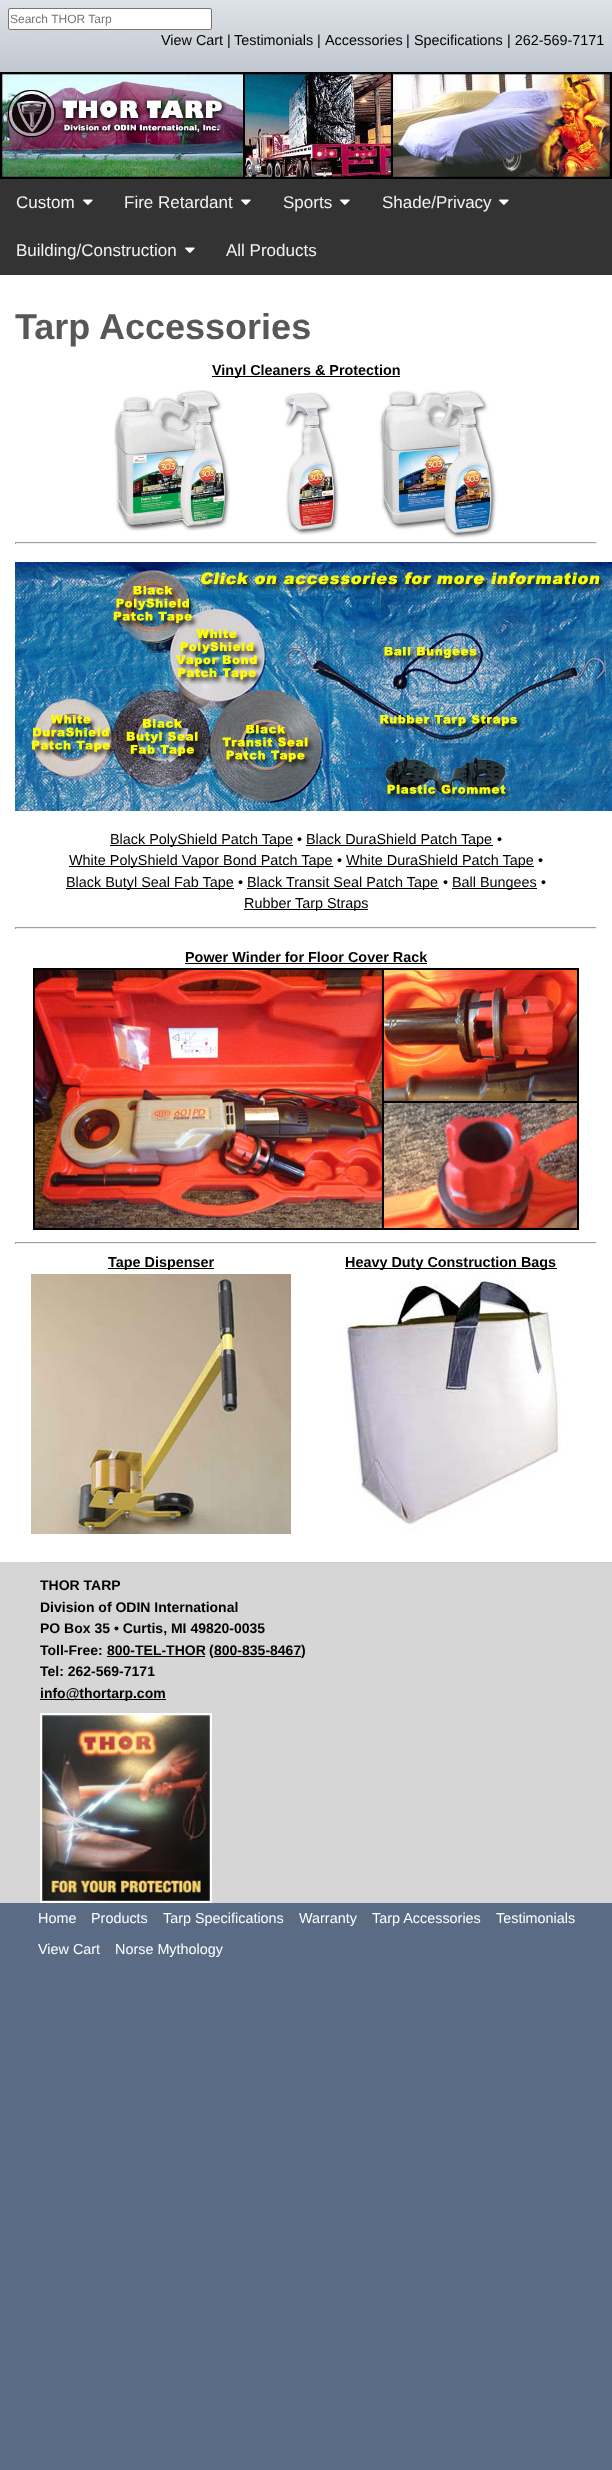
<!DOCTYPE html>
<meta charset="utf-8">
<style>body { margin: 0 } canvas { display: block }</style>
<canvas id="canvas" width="612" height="2470"></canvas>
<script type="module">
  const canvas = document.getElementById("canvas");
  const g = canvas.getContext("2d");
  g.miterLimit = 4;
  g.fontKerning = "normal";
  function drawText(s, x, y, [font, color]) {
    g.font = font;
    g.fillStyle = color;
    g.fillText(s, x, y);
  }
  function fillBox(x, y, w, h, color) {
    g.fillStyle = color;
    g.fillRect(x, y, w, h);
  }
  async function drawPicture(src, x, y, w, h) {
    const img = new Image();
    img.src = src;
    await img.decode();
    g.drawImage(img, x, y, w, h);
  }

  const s1 = ["12px Liberation Sans", "#757575"];
  const s2 = ["14.4px Liberation Sans", "#010101"];
  const s3 = ["17px Liberation Sans", "#F2F2F2"];
  const s4 = ["bold 36px Liberation Sans", "#575757"];
  const s5 = ["bold 14.4px Liberation Sans", "#010101"];
  const s6 = ["bold 14px Liberation Sans", "#010101"];
  const s7 = ["14.4px Liberation Sans", "#FFFFFF"];

  fillBox(0, 0, 612, 2470, "#596B85");
  await drawPicture("pic1.png", 0, 0, 612, 72);
  g.fillStyle = "#FFFFFF";
  g.beginPath();
  g.roundRect(8.5, 8.5, 203, 21, 1.5);
  g.fill();
  g.strokeStyle = "#767676";
  g.stroke();
  drawText("Search THOR Tarp", 10, 23, s1);
  drawText("View Cart", 161, 45, s2);
  drawText("|", 227, 45, s2);
  drawText("Testimonials", 234, 45, s2);
  drawText("|", 317, 45, s2);
  drawText("Accessories", 325, 45, s2);
  drawText("|", 406, 45, s2);
  drawText("Specifications", 414, 45, s2);
  drawText("| 262-569-7171", 507, 45, s2);
  await drawPicture("pic2.png", 0, 72, 612, 107);
  fillBox(0, 179, 612, 96, "#333333");
  drawText("Custom", 16, 208, s3);
  await drawPicture("pic3.png", 83, 199, 10, 6);
  drawText("Fire Retardant", 124, 208, s3);
  await drawPicture("pic3.png", 241, 199, 10, 6);
  drawText("Sports", 283, 208, s3);
  await drawPicture("pic3.png", 340, 199, 10, 6);
  drawText("Shade/Privacy", 382, 208, s3);
  await drawPicture("pic3.png", 499, 199, 10, 6);
  drawText("Building/Construction", 16, 256, s3);
  await drawPicture("pic3.png", 185, 247, 10, 6);
  drawText("All Products", 226, 256, s3);
  fillBox(0, 275, 612, 1287, "#FFFFFF");
  drawText("Tarp Accessories", 15, 339, s4);
  fillBox(212, 376, 188, 1, "#010101");
  drawText("Vinyl Cleaners & Protection", 212, 375, s5);
  await drawPicture("pic4.png", 114, 390, 116, 141);
  await drawPicture("pic5.png", 284, 392, 55, 143);
  await drawPicture("pic6.png", 379, 390, 118, 148);
  fillBox(15, 542, 582, 1, "#9F9F9F");
  fillBox(596, 542, 1, 2, "#EEEEEE");
  fillBox(15, 543, 582, 1, "#EEEEEE");
  fillBox(15, 542, 1, 2, "#9F9F9F");
  await drawPicture("pic7.png", 15, 562, 597, 249);
  fillBox(110, 845, 183, 1, "#010101");
  drawText("Black PolyShield Patch Tape", 110, 844, s2);
  drawText("•", 297, 844, s2);
  fillBox(306, 845, 187, 1, "#010101");
  drawText("Black DuraShield Patch Tape", 306, 844, s2);
  drawText("•", 497, 844, s2);
  fillBox(69, 866, 264, 1, "#010101");
  drawText("White PolyShield Vapor Bond Patch Tape", 69, 865, s2);
  drawText("•", 337, 865, s2);
  fillBox(346, 866, 188, 1, "#010101");
  drawText("White DuraShield Patch Tape", 346, 865, s2);
  drawText("•", 538, 865, s2);
  fillBox(66, 888, 168, 1, "#010101");
  drawText("Black Butyl Seal Fab Tape", 66, 887, s2);
  drawText("•", 238, 887, s2);
  fillBox(247, 888, 192, 1, "#010101");
  drawText("Black Transit Seal Patch Tape", 247, 887, s2);
  drawText("•", 443, 887, s2);
  fillBox(452, 888, 85, 1, "#010101");
  drawText("Ball Bungees", 452, 887, s2);
  drawText("•", 541, 887, s2);
  fillBox(244, 909, 124, 1, "#010101");
  drawText("Rubber Tarp Straps", 244, 908, s2);
  fillBox(15, 927, 582, 1, "#9F9F9F");
  fillBox(596, 927, 1, 2, "#EEEEEE");
  fillBox(15, 928, 582, 1, "#EEEEEE");
  fillBox(15, 927, 1, 2, "#9F9F9F");
  drawText("Power Winder for Floor Cover Rack", 185, 962, s5);
  fillBox(185, 963, 242, 1, "#010101");
  await drawPicture("pic8.png", 33, 968, 546, 262);
  fillBox(15, 1242, 582, 1, "#9F9F9F");
  fillBox(596, 1242, 1, 2, "#EEEEEE");
  fillBox(15, 1243, 582, 1, "#EEEEEE");
  fillBox(15, 1242, 1, 2, "#9F9F9F");
  fillBox(108, 1268, 106, 1, "#010101");
  drawText("Tape Dispenser", 108, 1267, s5);
  await drawPicture("pic9.png", 31, 1274, 260, 260);
  fillBox(345, 1268, 212, 1, "#010101");
  drawText("Heavy Duty Construction Bags", 345, 1267, s5);
  await drawPicture("pic10.png", 337, 1274, 224, 256);
  fillBox(0, 1562, 612, 341, "#D6D6D6");
  fillBox(40, 1562, 572, 1, "#CCCCCC");
  drawText("THOR TARP", 40, 1590, s6);
  drawText("Division of ODIN International", 40, 1612, s6);
  drawText("PO Box 35 • Curtis, MI 49820-0035", 40, 1633, s6);
  drawText("Toll-Free:", 40, 1655, s6);
  drawText("800-TEL-THOR", 107, 1655, s6);
  fillBox(107, 1656, 98, 1, "#010101");
  drawText("(", 209, 1655, s6);
  drawText("800-835-8467", 214, 1655, s6);
  fillBox(214, 1656, 87, 1, "#010101");
  drawText(")", 301, 1655, s6);
  drawText("Tel: 262-569-7171", 40, 1676, s6);
  fillBox(40, 1699, 126, 1, "#010101");
  drawText("info@thortarp.com", 40, 1698, s6);
  await drawPicture("pic11.png", 40, 1713, 172, 190);
  drawText("Home", 38, 1923, s7);
  fillBox(83, 1912, 1, 11, "#676767");
  drawText("Products", 91, 1923, s7);
  fillBox(155, 1912, 1, 11, "#676767");
  drawText("Tarp Specifications", 163, 1923, s7);
  fillBox(291, 1912, 1, 11, "#676767");
  drawText("Warranty", 299, 1923, s7);
  fillBox(364, 1912, 1, 11, "#676767");
  drawText("Tarp Accessories", 372, 1923, s7);
  fillBox(488, 1912, 1, 11, "#676767");
  drawText("Testimonials", 496, 1923, s7);
  fillBox(30, 1943, 1, 11, "#676767");
  drawText("View Cart", 38, 1954, s7);
  fillBox(107, 1943, 1, 11, "#676767");
  drawText("Norse Mythology", 115, 1954, s7);
</script>
